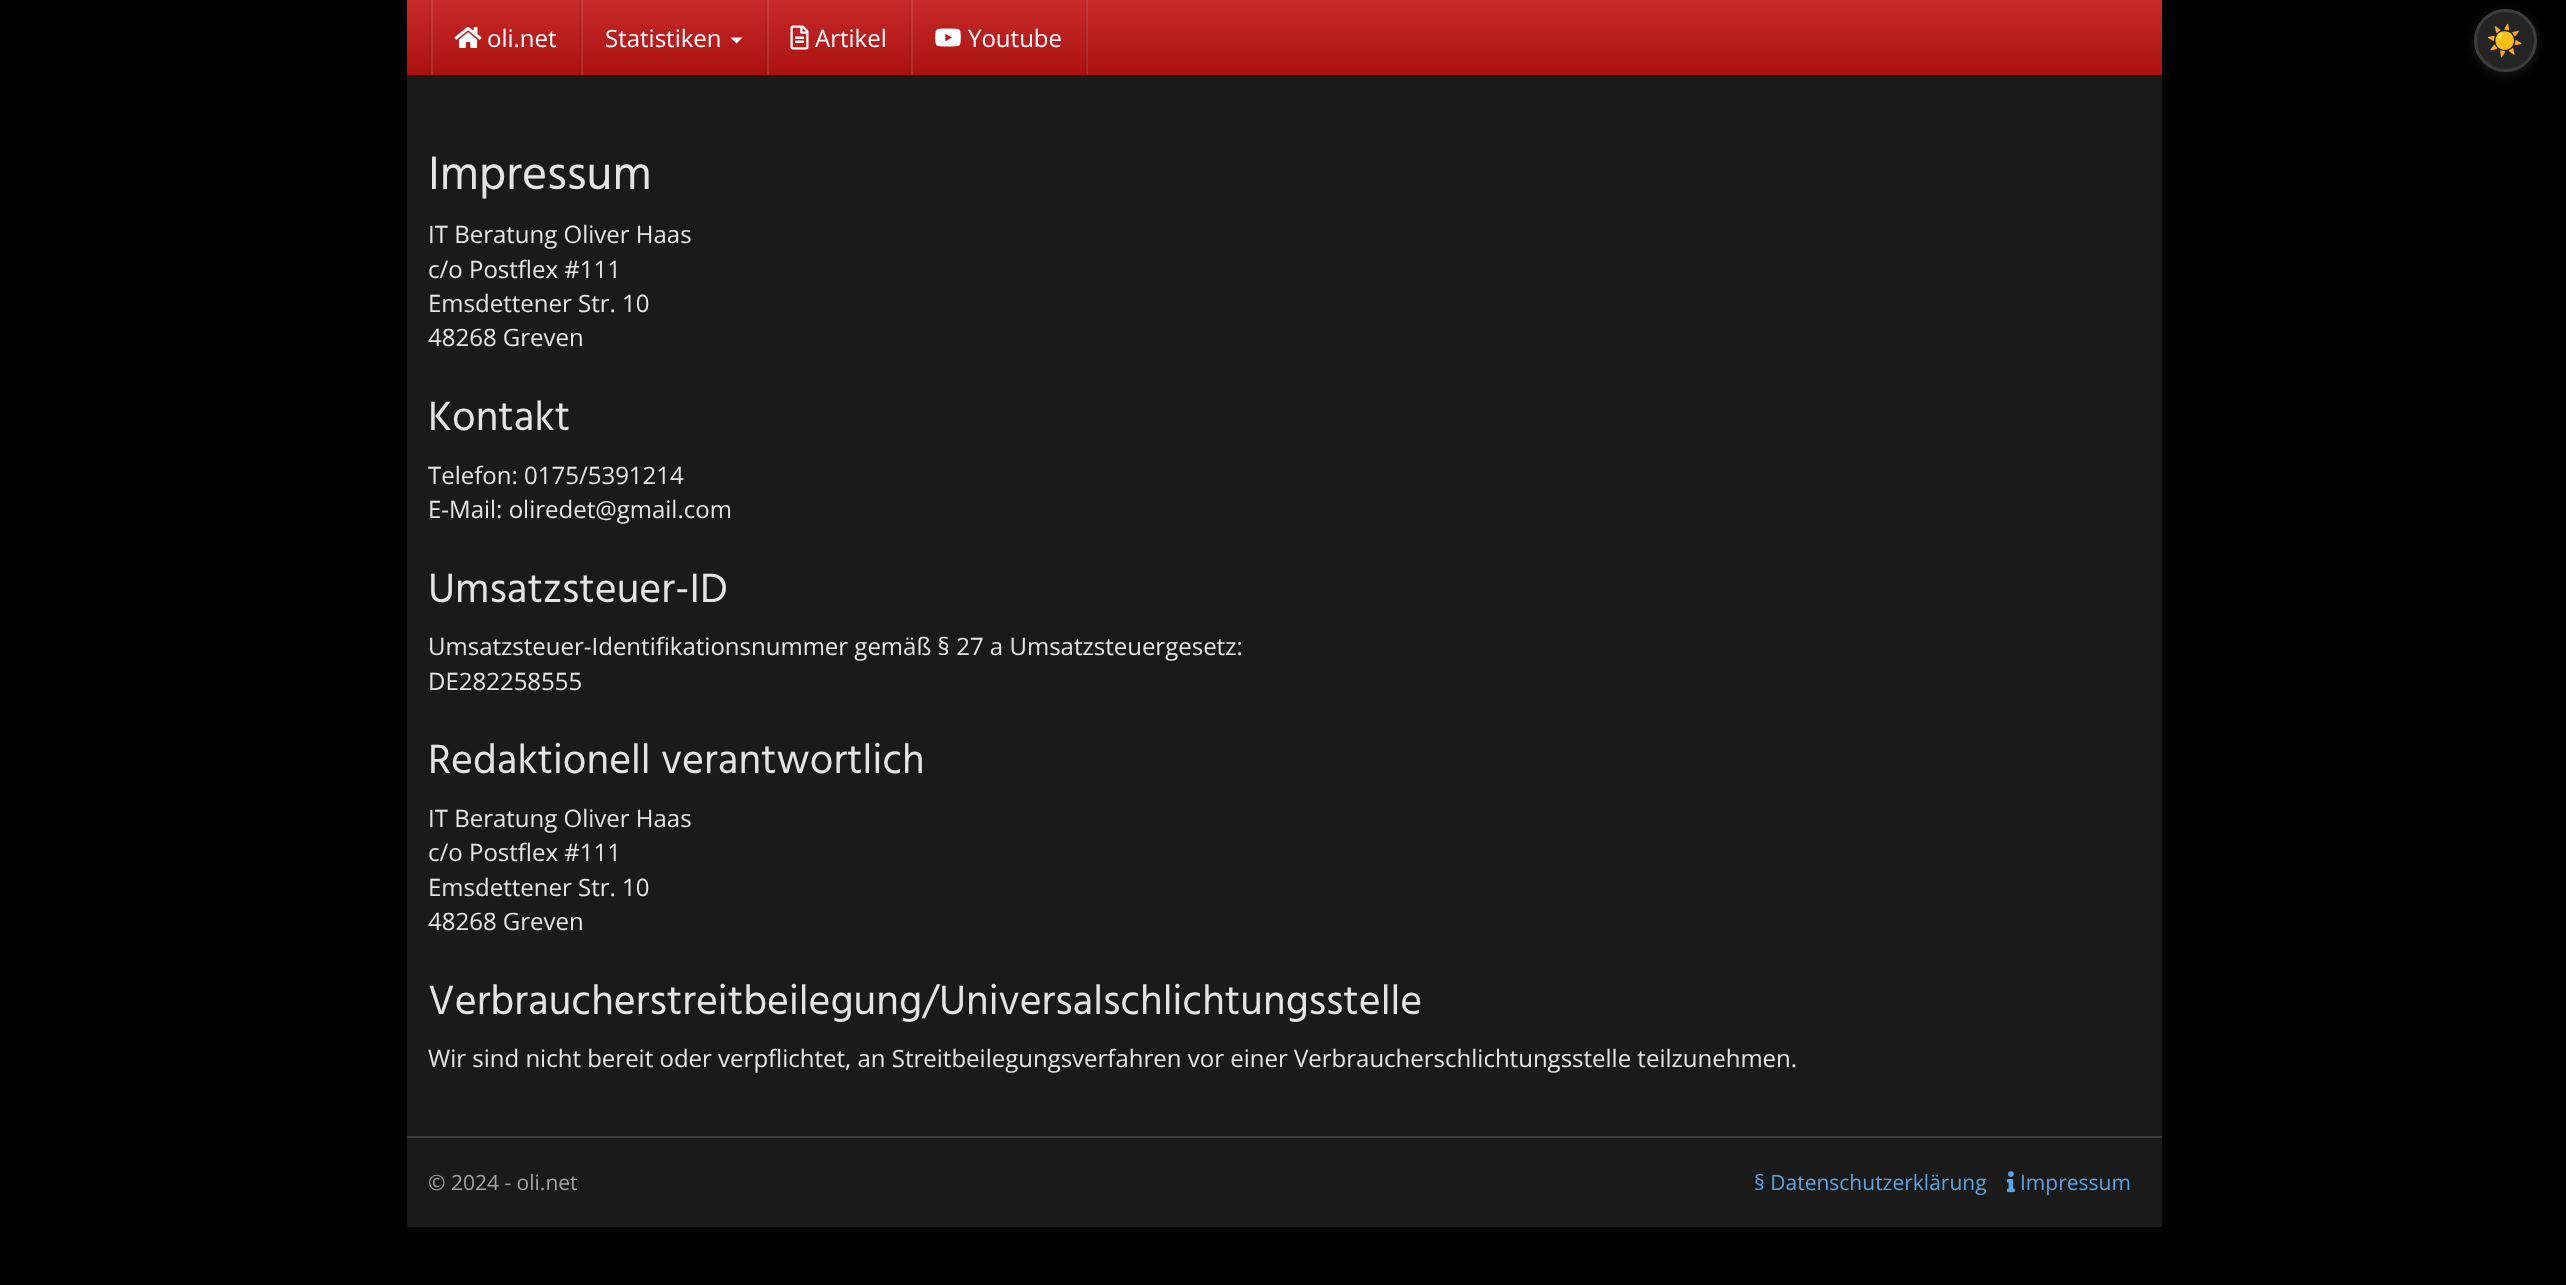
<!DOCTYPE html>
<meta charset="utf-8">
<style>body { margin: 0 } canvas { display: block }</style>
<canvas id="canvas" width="2566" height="1285"></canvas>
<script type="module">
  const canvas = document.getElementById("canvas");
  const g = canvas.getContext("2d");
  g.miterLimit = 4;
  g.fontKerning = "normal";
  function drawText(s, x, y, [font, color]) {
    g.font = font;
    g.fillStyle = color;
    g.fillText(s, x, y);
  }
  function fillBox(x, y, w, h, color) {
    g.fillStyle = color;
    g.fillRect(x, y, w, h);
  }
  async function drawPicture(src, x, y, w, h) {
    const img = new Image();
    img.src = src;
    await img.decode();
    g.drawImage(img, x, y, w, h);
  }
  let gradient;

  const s1 = ["24px Open Sans", "#FFFFFF"];
  const s2 = ["48px Hind", "#E4E4E4"];
  const s3 = ["24px Open Sans", "#E4E4E4"];
  const s4 = ["42px Hind", "#E4E4E4"];
  const s5 = ["21px Open Sans", "#9FA2A5"];
  const s6 = ["21px Open Sans", "#5BA3E0"];
  const s7 = ["30px Noto Color Emoji", "#E4E4E4"];

  fillBox(0, 0, 2566, 1285, "#000000");
  fillBox(407, 75, 1755, 1152, "#1A1A1A");
  gradient = g.createLinearGradient(1284, 0, 1284, 75);
  gradient.addColorStop(0, "#C62A2A");
  gradient.addColorStop(1, "#AC1111");
  g.fillStyle = gradient;
  g.fillRect(407, 0, 1755, 75);
  gradient = g.createLinearGradient(1284, 0, 1284, 75);
  gradient.addColorStop(0, "#CC3F3F");
  gradient.addColorStop(1, "#B42929");
  g.fillStyle = gradient;
  g.fillRect(911, 0, 2, 75);
  gradient = g.createLinearGradient(1284, 0, 1284, 75);
  gradient.addColorStop(0, "#B22626");
  gradient.addColorStop(1, "#9B0F0F");
  g.fillStyle = gradient;
  g.fillRect(1085, 0, 1, 75);
  gradient = g.createLinearGradient(1284, 0, 1284, 75);
  gradient.addColorStop(0, "#CC3F3F");
  gradient.addColorStop(1, "#B42929");
  g.fillStyle = gradient;
  g.fillRect(767, 0, 2, 75);
  gradient = g.createLinearGradient(1284, 0, 1284, 75);
  gradient.addColorStop(0, "#B22626");
  gradient.addColorStop(1, "#9B0F0F");
  g.fillStyle = gradient;
  g.fillRect(909, 0, 2, 75);
  gradient = g.createLinearGradient(1284, 0, 1284, 75);
  gradient.addColorStop(0, "#CC3F3F");
  gradient.addColorStop(1, "#B42929");
  g.fillStyle = gradient;
  g.fillRect(581, 0, 2, 75);
  gradient = g.createLinearGradient(1284, 0, 1284, 75);
  gradient.addColorStop(0, "#B22626");
  gradient.addColorStop(1, "#9B0F0F");
  g.fillStyle = gradient;
  g.fillRect(765, 0, 2, 75);
  gradient = g.createLinearGradient(1284, 0, 1284, 75);
  gradient.addColorStop(0, "#CC3F3F");
  gradient.addColorStop(1, "#B42929");
  g.fillStyle = gradient;
  g.fillRect(431, 0, 2, 75);
  gradient = g.createLinearGradient(1284, 0, 1284, 75);
  gradient.addColorStop(0, "#B22626");
  gradient.addColorStop(1, "#9B0F0F");
  g.fillStyle = gradient;
  g.fillRect(579, 0, 2, 75);
  g.fillRect(429, 0, 2, 75);
  gradient = g.createLinearGradient(1284, 0, 1284, 75);
  gradient.addColorStop(0, "#CC3F3F");
  gradient.addColorStop(1, "#B42929");
  g.fillStyle = gradient;
  g.fillRect(1087, 0, 1, 75);
  gradient = g.createLinearGradient(1284, 0, 1284, 75);
  gradient.addColorStop(0, "#B83939");
  gradient.addColorStop(1, "#A22525");
  g.fillStyle = gradient;
  g.fillRect(1086, 0, 1, 75);
  await drawPicture("pic1.png", 454, 27, 28, 21);
  drawText("oli.net", 487, 47, s1);
  drawText("Statistiken", 605, 47, s1);
  g.beginPath();
  g.moveTo(730.5, 37.5);
  g.lineTo(742.5, 37.5);
  g.lineTo(736.5, 43.5);
  g.closePath();
  g.fill();
  await drawPicture("pic2.png", 790, 25, 19, 25);
  drawText("Artikel", 815, 47, s1);
  await drawPicture("pic3.png", 935, 28, 26, 19);
  drawText("Youtube", 968, 47, s1);
  drawText("Impressum", 428, 189, s2);
  drawText("IT Beratung Oliver Haas", 428, 243, s3);
  drawText("c/o Postflex #111", 428, 278, s3);
  drawText("Emsdettener Str. 10", 428, 312, s3);
  drawText("48268 Greven", 428, 346, s3);
  drawText("Kontakt", 428, 430, s4);
  drawText("Telefon: 0175/5391214", 428, 484, s3);
  drawText("E-Mail: oliredet@gmail.com", 428, 518, s3);
  drawText("Umsatzsteuer-ID", 428, 602, s4);
  drawText("Umsatzsteuer-Identifikationsnummer gemäß § 27 a Umsatzsteuergesetz:", 428, 655, s3);
  drawText("DE282258555", 428, 690, s3);
  drawText("Redaktionell verantwortlich", 428, 773, s4);
  drawText("IT Beratung Oliver Haas", 428, 827, s3);
  drawText("c/o Postflex #111", 428, 861, s3);
  drawText("Emsdettener Str. 10", 428, 896, s3);
  drawText("48268 Greven", 428, 930, s3);
  drawText("Verbraucherstreitbeilegung/Universalschlichtungsstelle", 428, 1014, s4);
  drawText("Wir sind nicht bereit oder verpflichtet, an Streitbeilegungsverfahren vor einer Verbraucherschlichtungsstelle teilzunehmen.", 428, 1067, s3);
  fillBox(407, 1136, 1755, 2, "#3D3D3D");
  drawText("© 2024 - oli.net", 428, 1190, s5);
  drawText("§ Datenschutzerklärung", 1754, 1190, s6);
  await drawPicture("pic4.png", 2007, 1171, 8, 22);
  drawText("Impressum", 2020, 1190, s6);
  g.fillStyle = "rgba(255, 255, 255, 0.1)";
  g.filter = "blur(6px)";
  g.beginPath();
  g.roundRect(2474, 12, 63, 63, 31.5);
  g.fill();
  g.filter = "none";
  g.fillStyle = "#242424";
  g.beginPath();
  g.arc(2505.5, 40.5, 30, 0, Math.PI * 2);
  g.fill();
  g.strokeStyle = "#3D3D3D";
  g.lineWidth = 3;
  g.stroke();
  drawText("☀️", 2486, 51, s7);
</script>
